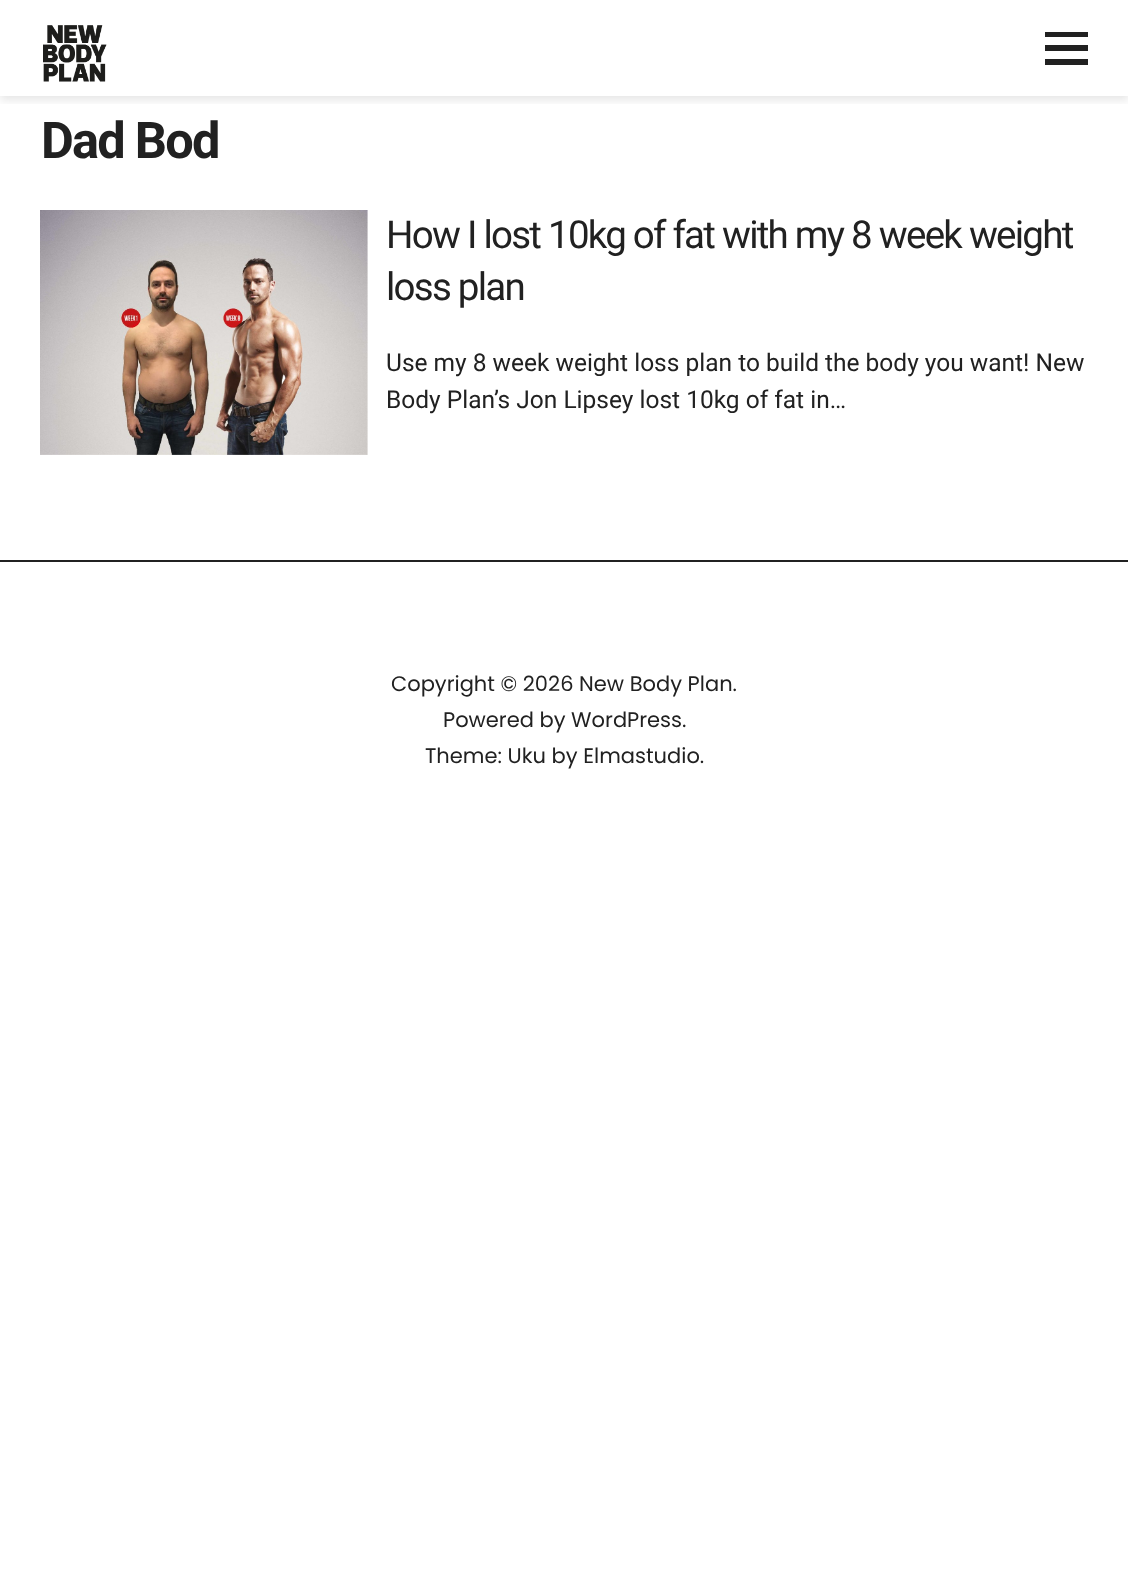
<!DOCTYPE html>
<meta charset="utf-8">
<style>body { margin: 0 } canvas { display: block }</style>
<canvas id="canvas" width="1128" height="1576"></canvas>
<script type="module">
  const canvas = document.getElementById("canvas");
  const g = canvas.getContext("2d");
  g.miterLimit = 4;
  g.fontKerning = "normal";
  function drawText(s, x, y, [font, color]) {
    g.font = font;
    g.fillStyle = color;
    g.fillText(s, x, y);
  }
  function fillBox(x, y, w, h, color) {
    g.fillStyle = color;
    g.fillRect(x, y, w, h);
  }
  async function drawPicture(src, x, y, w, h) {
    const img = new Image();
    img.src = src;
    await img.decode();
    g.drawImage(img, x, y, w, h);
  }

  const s1 = ["bold 50.5px Roboto", "#212121"];
  const s2 = ["38.5px Roboto", "#212121"];
  const s3 = ["24.5px Roboto", "#212121"];
  const s4 = ["21px Poppins", "#212121"];

  fillBox(0, 0, 1128, 1576, "#FFFFFF");
  g.save();
  g.beginPath();
  g.rect(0, 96, 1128, 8);
  g.clip();
  g.fillStyle = "rgba(0, 0, 0, 0.1)";
  g.filter = "blur(5px)";
  g.beginPath();
  g.rect(0, 4, 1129, 96);
  g.fill();
  g.filter = "none";
  g.restore();
  await drawPicture("pic1.png", 43, 25, 64, 57);
  g.fillStyle = "#212121";
  g.beginPath();
  g.moveTo(1045, 65);
  g.lineTo(1045, 59);
  g.lineTo(1088, 59);
  g.lineTo(1088, 65);
  g.closePath();
  g.moveTo(1045, 32);
  g.lineTo(1088, 32);
  g.lineTo(1088, 37);
  g.lineTo(1045, 37);
  g.closePath();
  g.moveTo(1045, 51);
  g.lineTo(1045, 45);
  g.lineTo(1088, 45);
  g.lineTo(1088, 51);
  g.closePath();
  g.fill();
  fillBox(0, 560, 1128, 2, "#212121");
  g.letterSpacing = "-1.75px";
  drawText("Dad Bod", 41, 158, s1);
  await drawPicture("pic2.png", 40, 210, 328, 245);
  drawText("How I lost 10kg of fat with my 8 week weight", 386, 248, s2);
  drawText("loss plan", 386, 300, s2);
  g.letterSpacing = "0px";
  drawText("Use my 8 week weight loss plan to build the body you want! New", 386, 371, s3);
  drawText("Body Plan’s Jon Lipsey lost 10kg of fat in…", 386, 408, s3);
  drawText("Copyright © 2026 New Body Plan.", 391, 691, s4);
  drawText("Powered by WordPress.", 443, 727, s4);
  drawText("Theme: Uku by Elmastudio.", 425, 763, s4);
</script>
